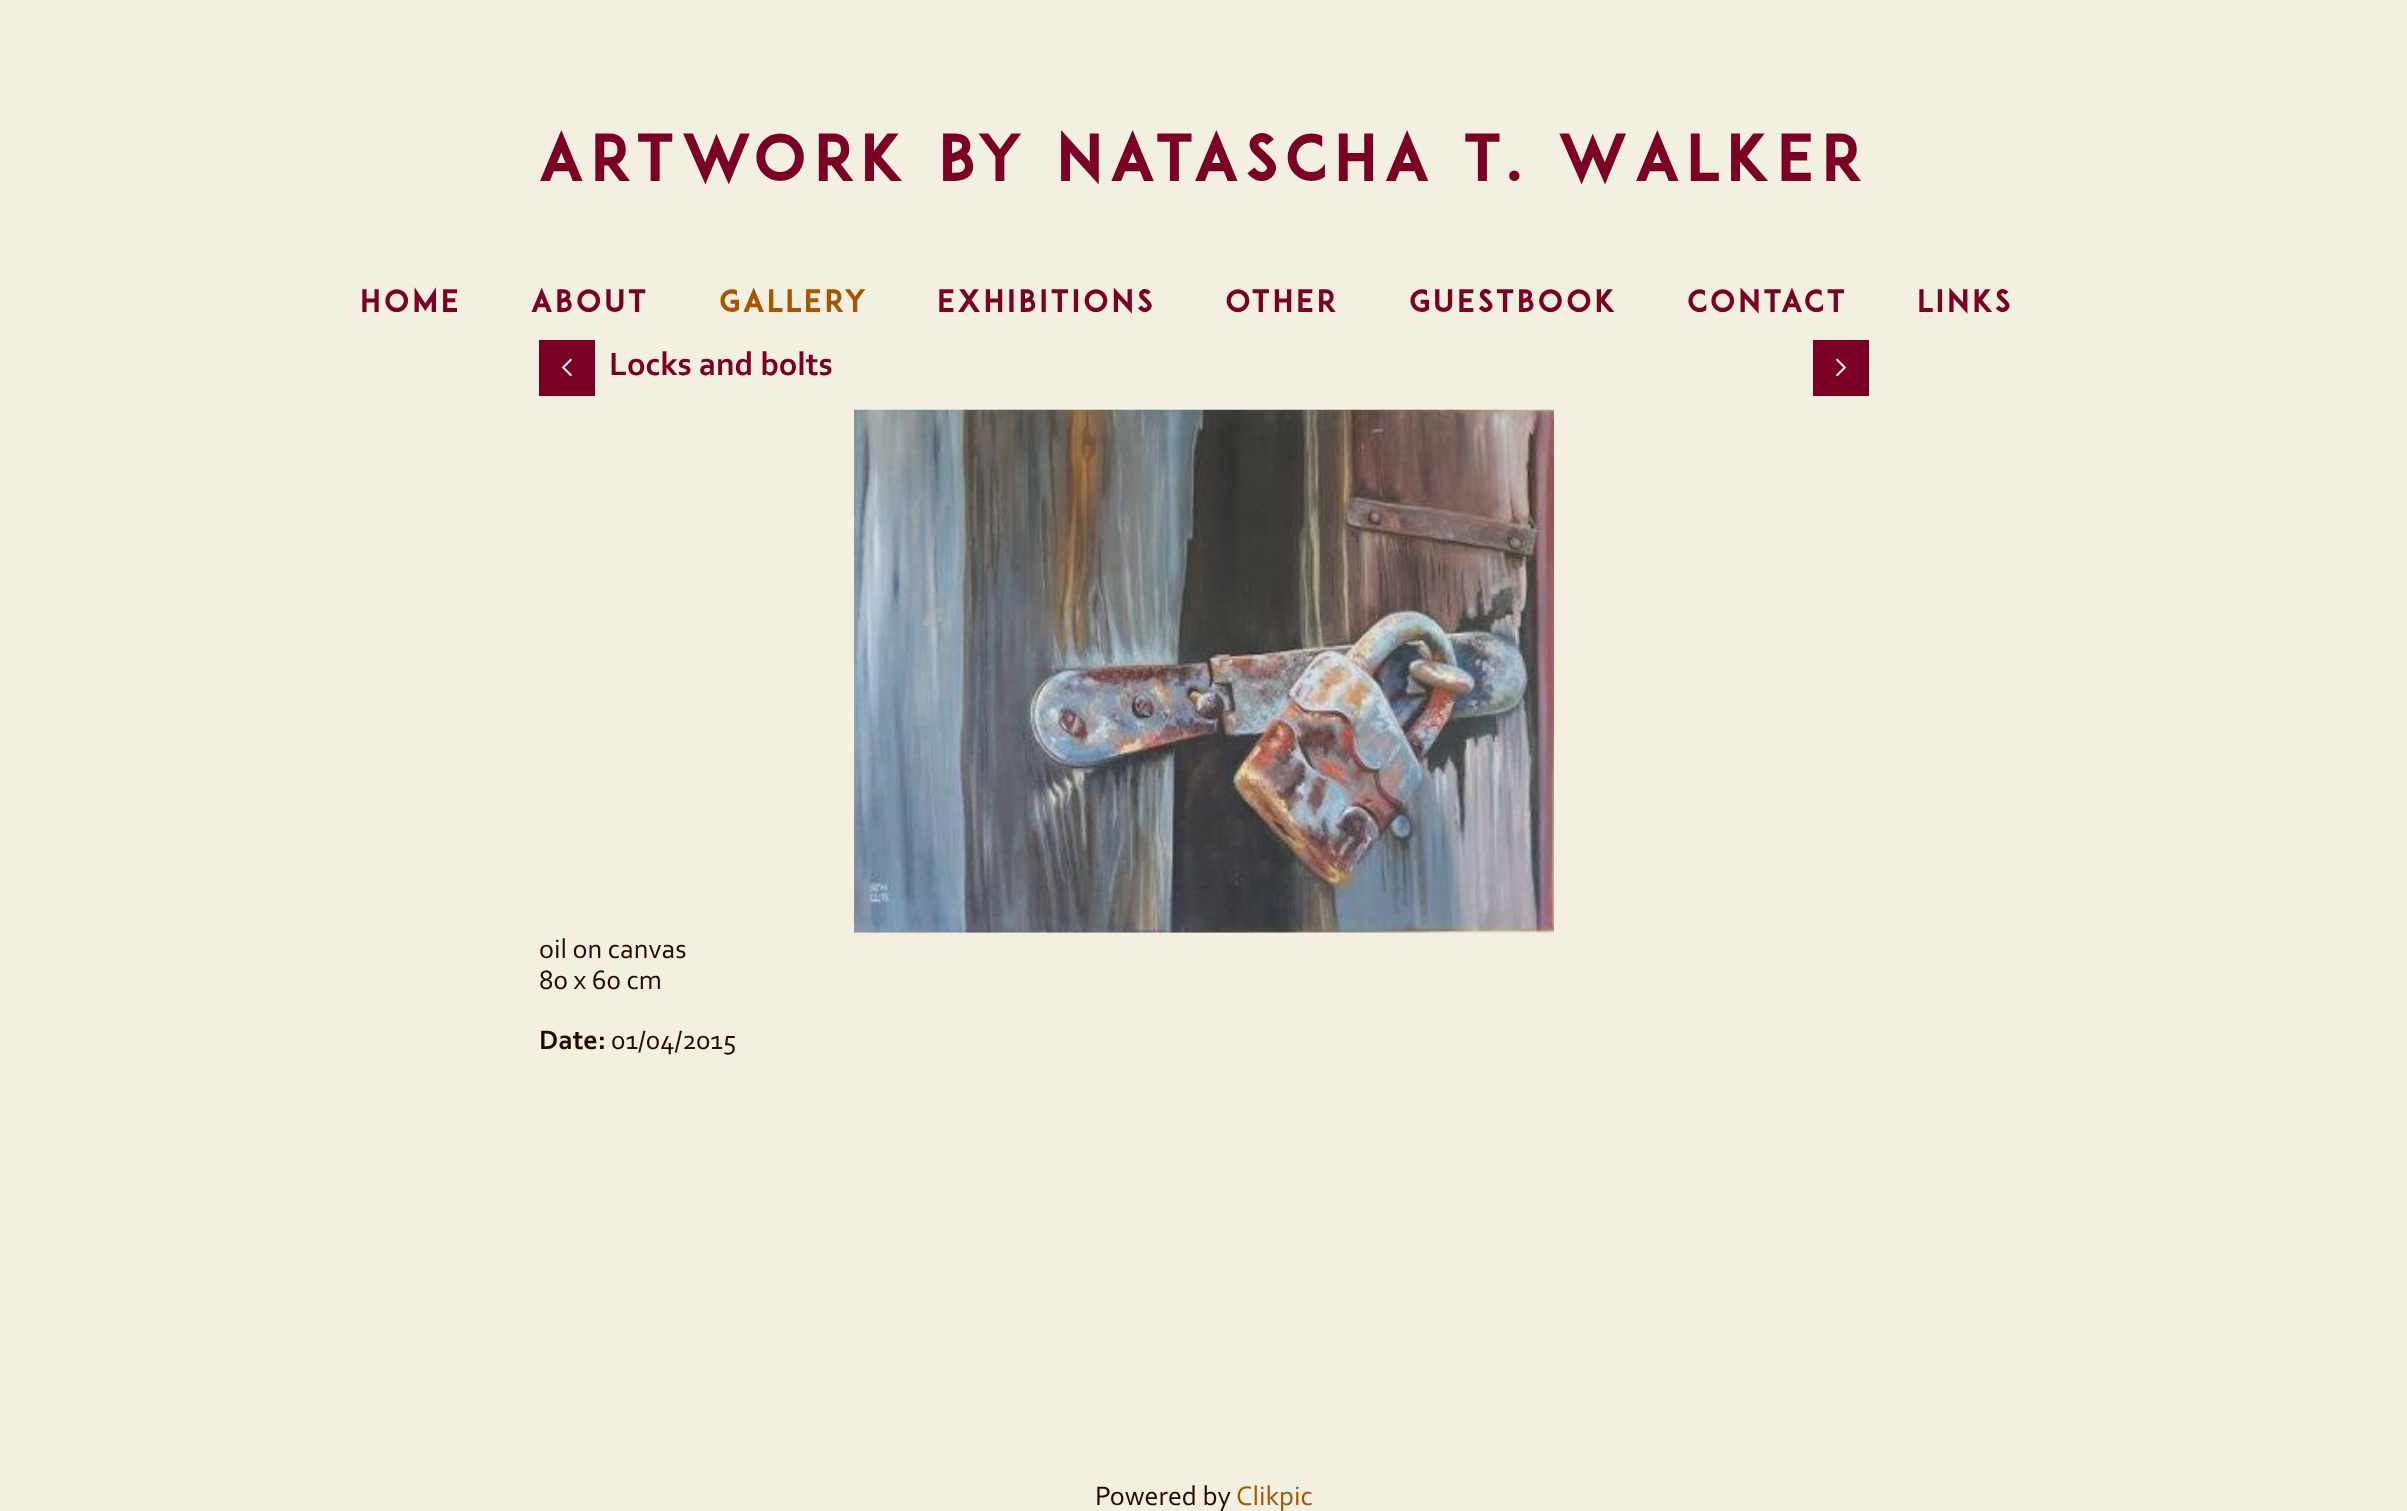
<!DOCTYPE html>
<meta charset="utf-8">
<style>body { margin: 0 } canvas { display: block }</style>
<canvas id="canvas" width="2407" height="1511"></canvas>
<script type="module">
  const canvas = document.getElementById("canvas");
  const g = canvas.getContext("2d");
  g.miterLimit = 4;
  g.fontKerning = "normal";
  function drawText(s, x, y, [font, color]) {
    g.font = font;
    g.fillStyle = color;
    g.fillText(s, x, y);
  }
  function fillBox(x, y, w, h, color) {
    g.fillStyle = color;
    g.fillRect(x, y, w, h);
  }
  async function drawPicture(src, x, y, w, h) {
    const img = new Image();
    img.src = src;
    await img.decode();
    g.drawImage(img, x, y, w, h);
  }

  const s1 = ["bold 61.6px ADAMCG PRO", "#7A0026"];
  const s2 = ["bold 29.5px ADAMCG PRO", "#7A0026"];
  const s3 = ["bold 29.5px ADAMCG PRO", "#A65601"];
  const s4 = ["bold 33.5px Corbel", "#7A0026"];
  const s5 = ["28px Corbel", "#270B00"];
  const s6 = ["bold 28px Corbel", "#270B00"];
  const s7 = ["28px Corbel", "#A65601"];

  fillBox(0, 0, 2407, 1511, "#F3F0E1");
  g.letterSpacing = "8.75px";
  drawText("Artwork by Natascha T. Walker", 539, 181, s1);
  g.letterSpacing = "3.5px";
  drawText("HOME", 360, 312, s2);
  drawText("ABOUT", 531, 312, s2);
  drawText("GALLERY", 719, 312, s3);
  drawText("EXHIBITIONS", 937, 312, s2);
  drawText("OTHER", 1225, 312, s2);
  drawText("GUESTBOOK", 1409, 312, s2);
  drawText("CONTACT", 1687, 312, s2);
  drawText("LINKS", 1917, 312, s2);
  fillBox(539, 340, 56, 56, "#7A0026");
  await drawPicture("pic1.png", 561, 358, 11, 19);
  fillBox(1813, 340, 56, 56, "#7A0026");
  await drawPicture("pic2.png", 1836, 358, 10, 19);
  g.letterSpacing = "0px";
  drawText("Locks and bolts", 609, 375, s4);
  await drawPicture("pic3.png", 854, 409, 700, 524);
  drawText("oil on canvas", 539, 958, s5);
  drawText("80 x 60 cm", 539, 989, s5);
  drawText("Date:", 539, 1049, s6);
  drawText("01/04/2015", 611, 1049, s5);
  drawText("Powered by", 1095, 1505, s5);
  drawText("Clikpic", 1236, 1505, s7);
</script>
